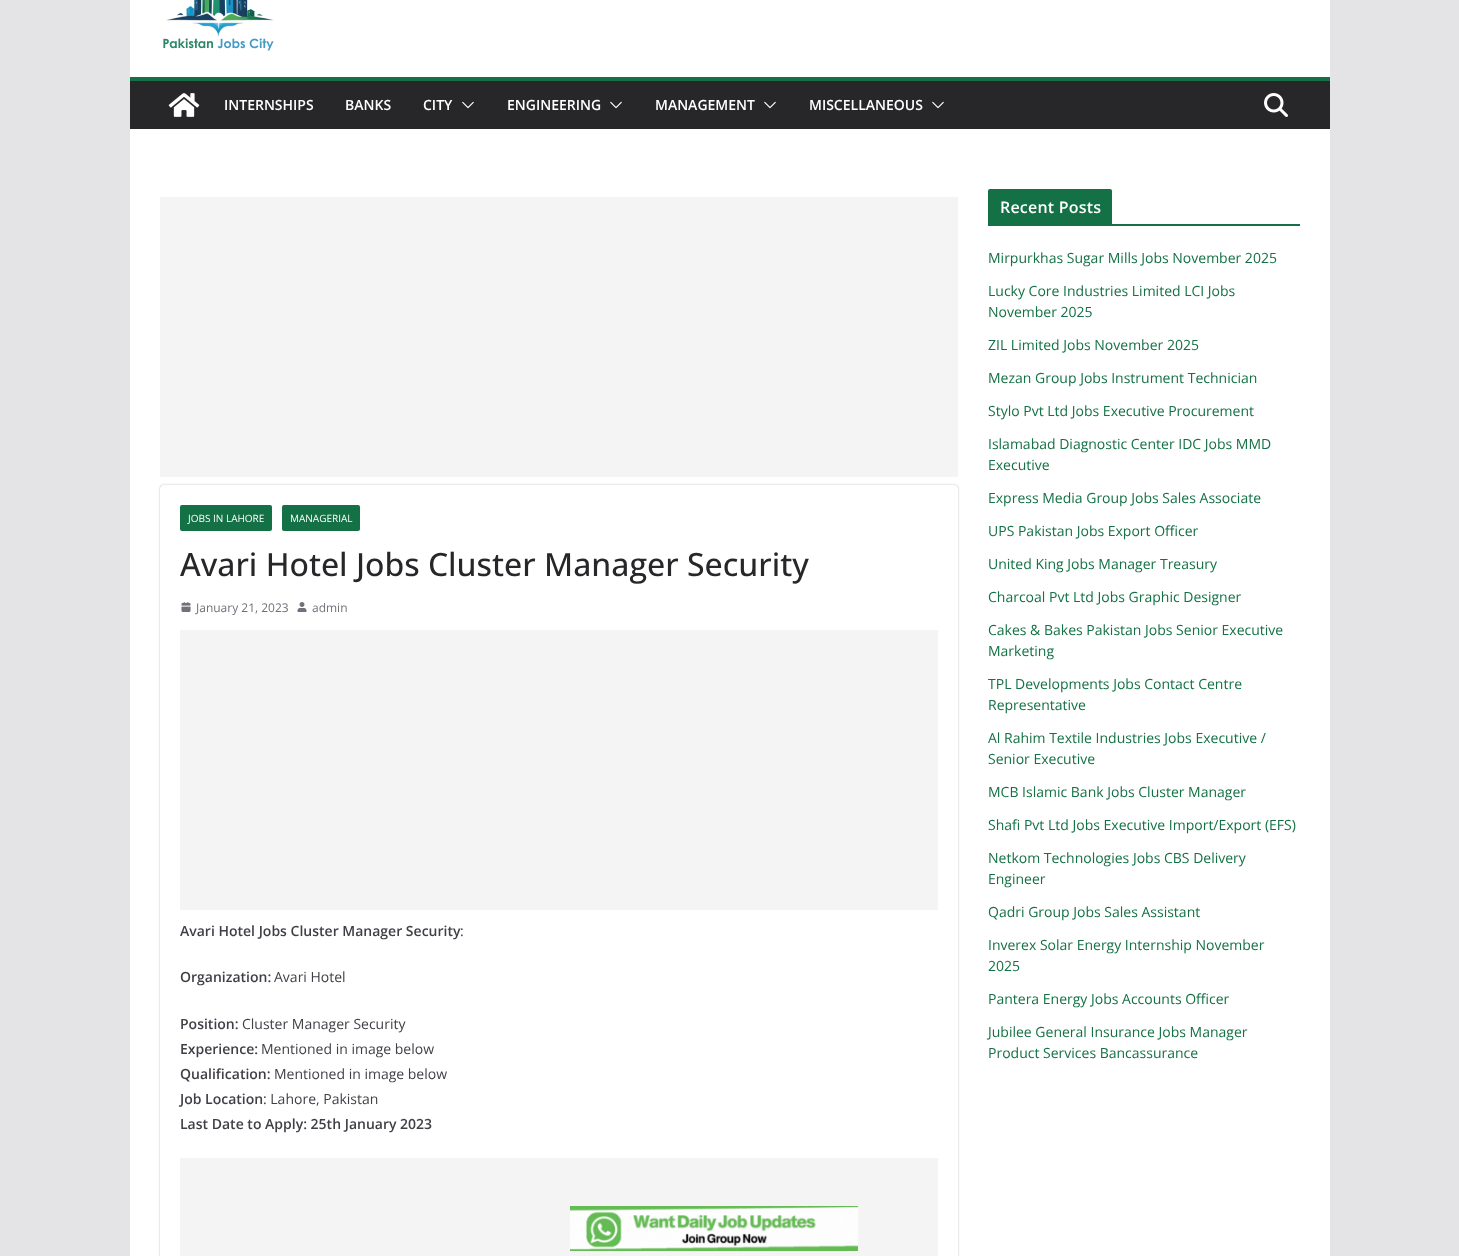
<!DOCTYPE html>
<meta charset="utf-8">
<style>body { margin: 0 } canvas { display: block }</style>
<canvas id="canvas" width="1459" height="1256"></canvas>
<script type="module">
  const canvas = document.getElementById("canvas");
  const g = canvas.getContext("2d");
  g.miterLimit = 4;
  g.fontKerning = "normal";
  function drawText(s, x, y, [font, color]) {
    g.font = font;
    g.fillStyle = color;
    g.fillText(s, x, y);
  }
  function fillBox(x, y, w, h, color) {
    g.fillStyle = color;
    g.fillRect(x, y, w, h);
  }
  function fillRounded(x, y, w, h, r, color) {
    g.fillStyle = color;
    g.beginPath();
    g.roundRect(x, y, w, h, r);
    g.fill();
  }
  async function drawPicture(src, x, y, w, h) {
    const img = new Image();
    img.src = src;
    await img.decode();
    g.drawImage(img, x, y, w, h);
  }

  const s1 = ["600 14px Open Sans", "#FFFFFF"];
  const s2 = ["10px Open Sans", "#FFFFFF"];
  const s3 = ["500 32px Open Sans", "#27272A"];
  const s4 = ["12px Open Sans", "#71717A"];
  const s5 = ["600 14px Open Sans", "#3F3F46"];
  const s6 = ["14px Open Sans", "#3F3F46"];
  const s7 = ["600 16px Open Sans", "#FFFFFF"];
  const s8 = ["14px Open Sans", "#147145"];

  fillBox(0, 0, 1459, 1256, "#E4E4E7");
  fillBox(130, 0, 1200, 77, "#FFFFFF");
  await drawPicture("pic1.png", 163, 0, 111, 51);
  fillBox(130, 81, 1200, 48, "#27272A");
  fillBox(130, 77, 1200, 4, "#147145");
  await drawPicture("pic2.png", 168, 93, 32, 24);
  drawText("INTERNSHIPS", 224, 110, s1);
  drawText("BANKS", 345, 110, s1);
  drawText("CITY", 423, 110, s1);
  await drawPicture("pic3.png", 462, 101, 12, 8);
  drawText("ENGINEERING", 507, 110, s1);
  await drawPicture("pic3.png", 610, 101, 12, 8);
  drawText("MANAGEMENT", 655, 110, s1);
  await drawPicture("pic3.png", 764, 101, 12, 8);
  drawText("MISCELLANEOUS", 809, 110, s1);
  await drawPicture("pic3.png", 932, 101, 12, 8);
  await drawPicture("pic4.png", 1264, 93, 24, 24);
  fillBox(130, 129, 1200, 1127, "#FFFFFF");
  fillBox(160, 197, 798, 280, "#F4F4F5");
  g.save();
  g.beginPath();
  g.moveTo(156, 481);
  g.lineTo(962, 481);
  g.lineTo(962, 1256);
  g.lineTo(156, 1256);
  g.closePath();
  g.moveTo(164, 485);
  g.lineTo(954, 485);
  g.bezierCurveTo(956, 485, 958, 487, 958, 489);
  g.lineTo(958, 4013);
  g.bezierCurveTo(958, 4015, 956, 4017, 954, 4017);
  g.lineTo(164, 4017);
  g.bezierCurveTo(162, 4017, 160, 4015, 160, 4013);
  g.lineTo(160, 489);
  g.bezierCurveTo(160, 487, 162, 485, 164, 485);
  g.closePath();
  g.clip("evenodd");
  g.fillStyle = "rgba(0, 0, 0, 0.24)";
  g.filter = "blur(1px)";
  g.beginPath();
  g.roundRect(160, 485, 798, 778, 4);
  g.fill();
  g.filter = "none";
  g.restore();
  fillRounded(180, 505, 92, 26, 2, "#147145");
  drawText("JOBS IN LAHORE", 188, 522, s2);
  fillRounded(282, 505, 78, 26, 2, "#147145");
  drawText("MANAGERIAL", 290, 522, s2);
  drawText("Avari Hotel Jobs Cluster Manager Security", 180, 576, s3);
  await drawPicture("pic5.png", 181, 602, 10, 10);
  drawText("January 21, 2023", 196, 612, s4);
  await drawPicture("pic6.png", 297, 602, 10, 10);
  drawText("admin", 312, 612, s4);
  fillBox(180, 630, 758, 280, "#F4F4F5");
  drawText("Avari Hotel Jobs Cluster Manager Security", 180, 936, s5);
  drawText(":", 460, 936, s6);
  drawText("Organization:", 180, 982, s5);
  drawText("Avari Hotel", 274, 982, s6);
  drawText("Position:", 180, 1029, s5);
  drawText("Cluster Manager Security", 242, 1029, s6);
  drawText("Experience:", 180, 1054, s5);
  drawText("Mentioned in image below", 261, 1054, s6);
  drawText("Qualification:", 180, 1079, s5);
  drawText("Mentioned in image below", 274, 1079, s6);
  drawText("Job Location", 180, 1104, s5);
  drawText(": Lahore, Pakistan", 263, 1104, s6);
  drawText("Last Date to Apply: 25th January 2023", 180, 1129, s5);
  fillBox(180, 1158, 758, 98, "#F4F4F5");
  fillBox(988, 224, 312, 2, "#147145");
  g.beginPath();
  g.roundRect(988, 189, 124, 35, [2, 2, 0, 0]);
  g.fill();
  g.letterSpacing = "0.2px";
  drawText("Recent Posts", 1000, 213, s7);
  g.letterSpacing = "0px";
  drawText("Mirpurkhas Sugar Mills Jobs November 2025", 988, 263, s8);
  drawText("Lucky Core Industries Limited LCI Jobs", 988, 296, s8);
  drawText("November 2025", 988, 317, s8);
  drawText("ZIL Limited Jobs November 2025", 988, 350, s8);
  drawText("Mezan Group Jobs Instrument Technician", 988, 383, s8);
  drawText("Stylo Pvt Ltd Jobs Executive Procurement", 988, 416, s8);
  drawText("Islamabad Diagnostic Center IDC Jobs MMD", 988, 449, s8);
  drawText("Executive", 988, 470, s8);
  drawText("Express Media Group Jobs Sales Associate", 988, 503, s8);
  drawText("UPS Pakistan Jobs Export Officer", 988, 536, s8);
  drawText("United King Jobs Manager Treasury", 988, 569, s8);
  drawText("Charcoal Pvt Ltd Jobs Graphic Designer", 988, 602, s8);
  drawText("Cakes & Bakes Pakistan Jobs Senior Executive", 988, 635, s8);
  drawText("Marketing", 988, 656, s8);
  drawText("TPL Developments Jobs Contact Centre", 988, 689, s8);
  drawText("Representative", 988, 710, s8);
  drawText("Al Rahim Textile Industries Jobs Executive /", 988, 743, s8);
  drawText("Senior Executive", 988, 764, s8);
  drawText("MCB Islamic Bank Jobs Cluster Manager", 988, 797, s8);
  drawText("Shafi Pvt Ltd Jobs Executive Import/Export (EFS)", 988, 830, s8);
  drawText("Netkom Technologies Jobs CBS Delivery", 988, 863, s8);
  drawText("Engineer", 988, 884, s8);
  drawText("Qadri Group Jobs Sales Assistant", 988, 917, s8);
  drawText("Inverex Solar Energy Internship November", 988, 950, s8);
  drawText("2025", 988, 971, s8);
  drawText("Pantera Energy Jobs Accounts Officer", 988, 1004, s8);
  drawText("Jubilee General Insurance Jobs Manager", 988, 1037, s8);
  drawText("Product Services Bancassurance", 988, 1058, s8);
  await drawPicture("pic7.png", 570, 1206, 288, 45);
</script>
